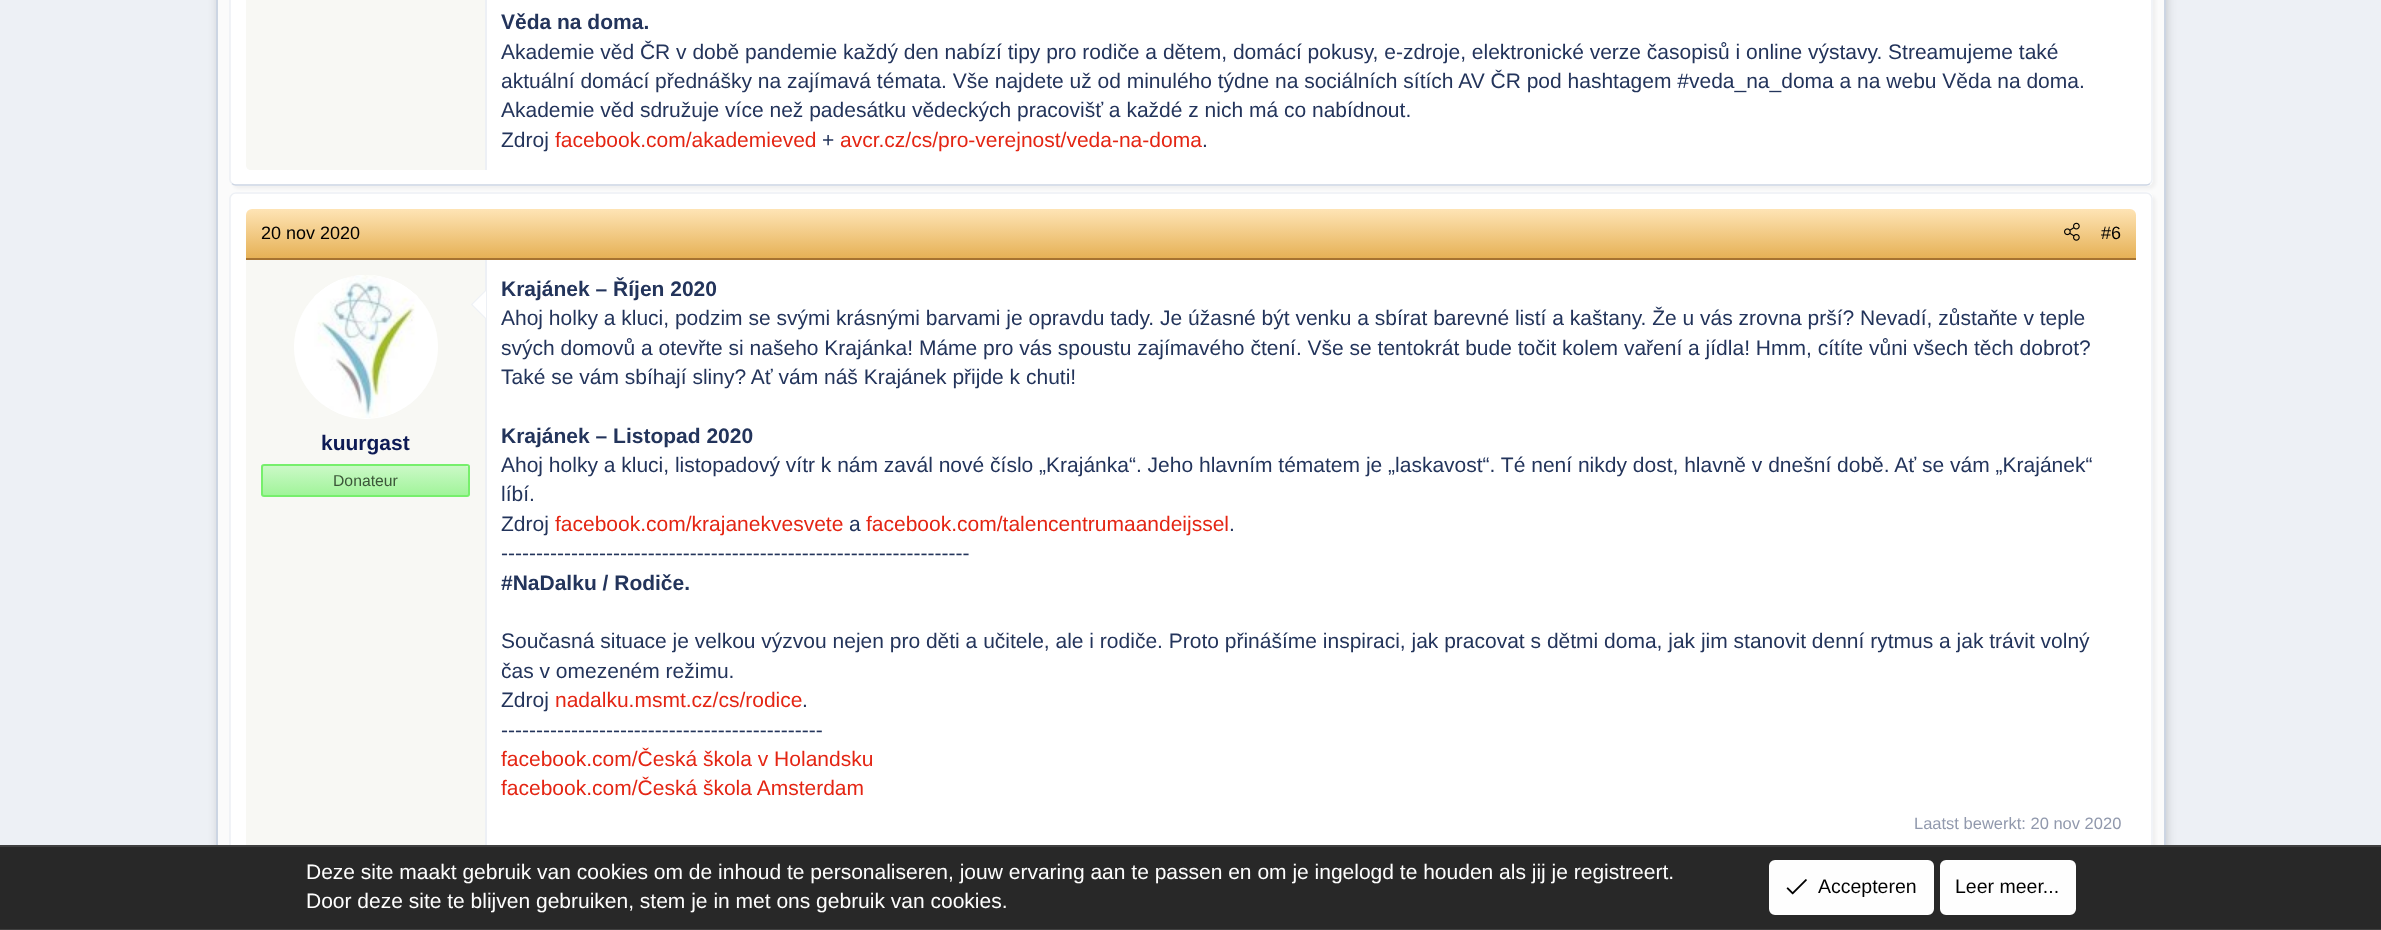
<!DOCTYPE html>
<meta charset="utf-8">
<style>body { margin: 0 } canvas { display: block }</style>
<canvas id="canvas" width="2381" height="930"></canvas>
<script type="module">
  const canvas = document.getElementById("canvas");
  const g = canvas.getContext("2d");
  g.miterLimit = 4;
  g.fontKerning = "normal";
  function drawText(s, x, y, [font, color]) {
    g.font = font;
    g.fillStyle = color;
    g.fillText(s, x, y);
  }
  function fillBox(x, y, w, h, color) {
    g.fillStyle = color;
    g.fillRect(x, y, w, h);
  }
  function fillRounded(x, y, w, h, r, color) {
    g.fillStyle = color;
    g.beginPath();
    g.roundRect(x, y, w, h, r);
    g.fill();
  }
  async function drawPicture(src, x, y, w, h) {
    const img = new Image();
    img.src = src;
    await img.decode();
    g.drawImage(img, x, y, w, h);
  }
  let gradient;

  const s1 = ["bold 21px Liberation Sans", "#23345B"];
  const s2 = ["21px Liberation Sans", "#23345B"];
  const s3 = ["21px Liberation Sans", "#E42513"];
  const s4 = ["18px Liberation Sans", "#000000"];
  const s5 = ["bold 21px Liberation Sans", "#0D1A54"];
  const s6 = ["15.75px Liberation Sans", "#3B5638"];
  const s7 = ["16.5px Liberation Sans", "#9199AD"];
  const s8 = ["21px Liberation Sans", "#FEFEFE"];
  const s9 = ["19.5px Liberation Sans", "#000000"];

  fillBox(0, 0, 2381, 930, "#EDF0F5");
  g.fillStyle = "rgba(0, 0, 0, 0.5)";
  g.filter = "blur(7.5px)";
  g.beginPath();
  g.roundRect(225, -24, 1935, 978, 1.5);
  g.fill();
  g.filter = "none";
  fillBox(218, 0, 1946, 845, "#FBFBFB");
  g.strokeStyle = "#CCD5E3";
  g.lineWidth = 2;
  g.strokeRect(217, -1, 1948, 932);
  g.fillStyle = "rgba(0, 0, 0, 0.04)";
  g.filter = "blur(1.5px)";
  g.beginPath();
  g.roundRect(233, -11, 1923, 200, 6);
  g.fill();
  g.filter = "none";
  fillRounded(230, -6, 1923, 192, 6, "#FFFFFF");
  g.beginPath();
  g.moveTo(2150, 183.5);
  g.bezierCurveTo(2149, 184.5, 2148, 185, 2146.5, 185);
  g.lineTo(235.5, 185);
  g.bezierCurveTo(234, 185, 233, 184.5, 232, 183.5);
  g.lineWidth = 1.5;
  g.stroke();
  g.beginPath();
  g.moveTo(232, 183.5);
  g.bezierCurveTo(231, 182.5, 230, 181.5, 230, 180);
  g.lineTo(230, -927);
  g.bezierCurveTo(230, -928.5, 231, -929.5, 232, -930.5);
  g.bezierCurveTo(233, -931.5, 234, -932, 235.5, -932);
  g.lineTo(2146.5, -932);
  g.bezierCurveTo(2148, -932, 2149, -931.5, 2150, -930.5);
  g.bezierCurveTo(2151, -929.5, 2152, -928.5, 2152, -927);
  g.lineTo(2152, 180);
  g.bezierCurveTo(2152, 181.5, 2151, 182.5, 2150, 183.5);
  g.strokeStyle = "#EDF0F5";
  g.stroke();
  g.fillStyle = "#F8F8F4";
  g.beginPath();
  g.moveTo(246, -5);
  g.lineTo(486, -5);
  g.lineTo(486, 170);
  g.lineTo(251, 170);
  g.bezierCurveTo(248, 170, 246, 168, 246, 165);
  g.closePath();
  g.fill();
  fillBox(485, 0, 2, 170, "#EDF0F5");
  drawText("Věda na doma.", 501, 29, s1);
  drawText("Akademie věd ČR v době pandemie každý den nabízí tipy pro rodiče a dětem, domácí pokusy, e-zdroje, elektronické verze časopisů i online výstavy. Streamujeme také", 501, 59, s2);
  drawText("aktuální domácí přednášky na zajímavá témata. Vše najdete už od minulého týdne na sociálních sítích AV ČR pod hashtagem #veda_na_doma a na webu Věda na doma.", 501, 88, s2);
  drawText("Akademie věd sdružuje více než padesátku vědeckých pracovišť a každé z nich má co nabídnout.", 501, 117, s2);
  drawText("Zdroj", 501, 147, s2);
  drawText("facebook.com/akademieved", 555, 147, s3);
  drawText("+", 822, 147, s2);
  drawText("avcr.cz/cs/pro-verejnost/veda-na-doma", 840, 147, s3);
  drawText(".", 1202, 147, s2);
  g.fillStyle = "rgba(0, 0, 0, 0.04)";
  g.filter = "blur(1.5px)";
  g.beginPath();
  g.roundRect(233, 195, 1923, 675, 6);
  g.fill();
  g.filter = "none";
  fillRounded(230, 192, 1923, 675, 6, "#FFFFFF");
  g.beginPath();
  g.moveTo(232, 864.5);
  g.bezierCurveTo(231, 863.5, 230, 862.5, 230, 861);
  g.lineTo(230, 198);
  g.bezierCurveTo(230, 196.5, 231, 195.5, 232, 194.5);
  g.bezierCurveTo(233, 193.5, 234, 193, 235.5, 193);
  g.lineTo(2146.5, 193);
  g.bezierCurveTo(2148, 193, 2149, 193.5, 2150, 194.5);
  g.bezierCurveTo(2151, 195.5, 2152, 196.5, 2152, 198);
  g.lineTo(2152, 861);
  g.bezierCurveTo(2152, 862.5, 2151, 863.5, 2150, 864.5);
  g.stroke();
  gradient = g.createLinearGradient(1191, 208, 1191, 258);
  gradient.addColorStop(0, "#FFE5B7");
  gradient.addColorStop(1, "#E6B156");
  g.fillStyle = gradient;
  g.beginPath();
  g.roundRect(246, 209, 1890, 49, [6, 6, 0, 0]);
  g.fill();
  fillBox(246, 258, 1890, 2, "#A67331");
  drawText("20 nov 2020", 261, 239, s4);
  await drawPicture("pic1.png", 2064, 222, 16, 19);
  drawText("#6", 2101, 239, s4);
  fillBox(246, 260, 239, 585, "#F8F8F4");
  fillBox(485, 260, 2, 591, "#EDF0F5");
  g.fillStyle = "#FFFFFF";
  g.beginPath();
  g.arc(366, 347, 72, 0, Math.PI * 2);
  g.fill();
  await drawPicture("pic2.png", 314, 275, 104, 143);
  g.fillStyle = "#EDF0F5";
  g.beginPath();
  g.moveTo(486, 289.5);
  g.lineTo(486, 319.5);
  g.lineTo(471, 304.5);
  g.closePath();
  g.fill();
  g.fillStyle = "#FFFFFF";
  g.beginPath();
  g.moveTo(486, 291);
  g.lineTo(486, 318);
  g.lineTo(472.5, 304.5);
  g.closePath();
  g.fill();
  drawText("kuurgast", 321, 450, s5);
  g.save();
  g.beginPath();
  g.roundRect(261, 464, 209, 33, 3);
  g.clip();
  gradient = g.createLinearGradient(365, 465, 365, 495);
  gradient.addColorStop(0, "#CCF9C8");
  gradient.addColorStop(1, "#A1F49A");
  g.fillStyle = gradient;
  g.fillRect(261, 465, 209, 30);
  g.restore();
  g.fillStyle = "#FFFFFF";
  g.beginPath();
  g.moveTo(264, 466);
  g.lineTo(466, 466);
  g.lineTo(468, 467);
  g.lineTo(468, 468);
  g.lineTo(468, 466);
  g.bezierCurveTo(468, 466, 467, 465, 466, 465);
  g.lineTo(264, 465);
  g.bezierCurveTo(264, 465, 263, 466, 263, 466);
  g.closePath();
  g.fill();
  g.beginPath();
  g.roundRect(262, 465, 207, 31, 2);
  g.strokeStyle = "#77EF6C";
  g.lineWidth = 2;
  g.stroke();
  drawText("Donateur", 333, 486, s6);
  drawText("Krajánek – Říjen 2020", 501, 296, s1);
  drawText("Ahoj holky a kluci, podzim se svými krásnými barvami je opravdu tady. Je úžasné být venku a sbírat barevné listí a kaštany. Že u vás zrovna prší? Nevadí, zůstaňte v teple", 501, 325, s2);
  drawText("svých domovů a otevřte si našeho Krajánka! Máme pro vás spoustu zajímavého čtení. Vše se tentokrát bude točit kolem vaření a jídla! Hmm, cítíte vůni všech těch dobrot?", 501, 355, s2);
  drawText("Také se vám sbíhají sliny? Ať vám náš Krajánek přijde k chuti!", 501, 384, s2);
  drawText("Krajánek – Listopad 2020", 501, 443, s1);
  drawText("Ahoj holky a kluci, listopadový vítr k nám zavál nové číslo „Krajánka“. Jeho hlavním tématem je „laskavost“. Té není nikdy dost, hlavně v dnešní době. Ať se vám „Krajánek“", 501, 472, s2);
  drawText("líbí.", 501, 501, s2);
  drawText("Zdroj", 501, 531, s2);
  drawText("facebook.com/krajanekvesvete", 555, 531, s3);
  drawText("a", 849, 531, s2);
  drawText("facebook.com/talencentrumaandeijssel", 866, 531, s3);
  drawText(".", 1229, 531, s2);
  drawText("-------------------------------------------------------------------", 501, 560, s2);
  drawText("#NaDalku / Rodiče.", 501, 590, s1);
  drawText("Současná situace je velkou výzvou nejen pro děti a učitele, ale i rodiče. Proto přinášíme inspiraci, jak pracovat s dětmi doma, jak jim stanovit denní rytmus a jak trávit volný", 501, 648, s2);
  drawText("čas v omezeném režimu.", 501, 678, s2);
  drawText("Zdroj", 501, 707, s2);
  drawText("nadalku.msmt.cz/cs/rodice", 555, 707, s3);
  drawText(".", 802, 707, s2);
  drawText("----------------------------------------------", 501, 737, s2);
  drawText("facebook.com/Česká škola v Holandsku", 501, 766, s3);
  drawText("facebook.com/Česká škola Amsterdam", 501, 795, s3);
  drawText("Laatst bewerkt: 20 nov 2020", 1914, 829, s7);
  fillBox(0, 847, 2381, 82, "#282828");
  fillBox(0, 845, 2381, 2, "#404040");
  fillBox(0, 929, 2381, 1, "#404040");
  drawText("Deze site maakt gebruik van cookies om de inhoud te personaliseren, jouw ervaring aan te passen en om je ingelogd te houden als jij je registreert.", 306, 879, s8);
  drawText("Door deze site te blijven gebruiken, stem je in met ons gebruik van cookies.", 306, 908, s8);
  g.beginPath();
  g.roundRect(1770, 861, 163, 53, 5);
  g.fill();
  g.strokeStyle = "#FEFEFE";
  g.stroke();
  await drawPicture("pic3.png", 1786, 879, 21, 16);
  drawText("Accepteren", 1818, 893, s9);
  g.fillStyle = "#FEFEFE";
  g.beginPath();
  g.roundRect(1941, 861, 134, 53, 5);
  g.fill();
  g.stroke();
  drawText("Leer meer...", 1955, 893, s9);
</script>
